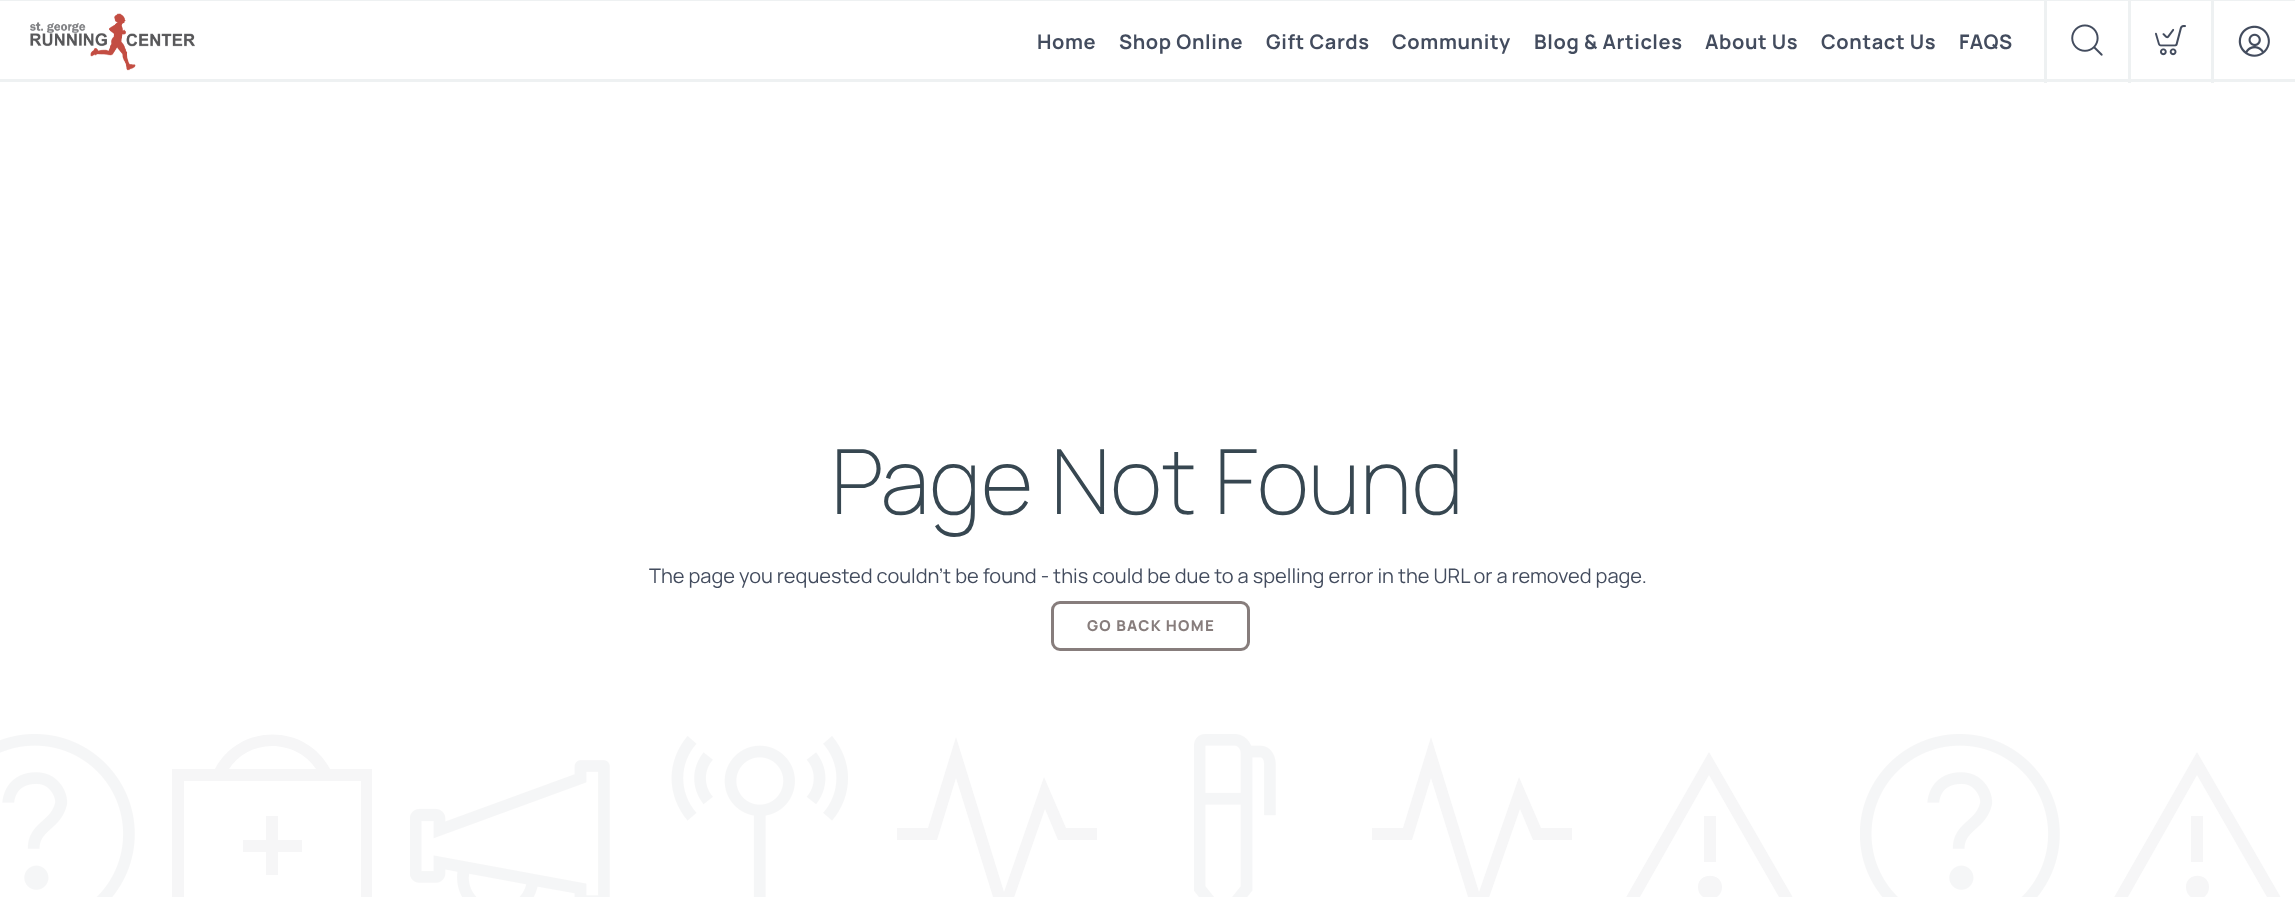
<!DOCTYPE html>
<meta charset="utf-8">
<style>body { margin: 0 } canvas { display: block }</style>
<canvas id="canvas" width="2295" height="897"></canvas>
<script type="module">
  const canvas = document.getElementById("canvas");
  const g = canvas.getContext("2d");
  g.miterLimit = 4;
  g.fontKerning = "normal";
  function drawText(s, x, y, [font, color]) {
    g.font = font;
    g.fillStyle = color;
    g.fillText(s, x, y);
  }
  function fillBox(x, y, w, h, color) {
    g.fillStyle = color;
    g.fillRect(x, y, w, h);
  }
  async function drawPicture(src, x, y, w, h) {
    const img = new Image();
    img.src = src;
    await img.decode();
    g.drawImage(img, x, y, w, h);
  }

  const s1 = ["bold 20px Manrope", "#434C5E"];
  const s2 = ["200 90px Manrope", "#374751"];
  const s3 = ["20px Manrope", "#434C5E"];
  const s4 = ["800 15px Manrope", "#877D7C"];

  fillBox(0, 0, 2295, 897, "#FFFFFF");
  fillBox(0, 0, 2295, 1, "#EEF1F2");
  fillBox(0, 79, 2295, 3, "#EEF1F2");
  await drawPicture("pic1.png", 30, 13, 165, 58);
  g.letterSpacing = "0.6px";
  drawText("Home", 1037, 49, s1);
  drawText("Shop Online", 1119, 49, s1);
  drawText("Gift Cards", 1266, 49, s1);
  drawText("Community", 1392, 49, s1);
  drawText("Blog & Articles", 1534, 49, s1);
  drawText("About Us", 1705, 49, s1);
  drawText("Contact Us", 1821, 49, s1);
  drawText("FAQS", 1959, 49, s1);
  fillBox(2044, 1, 3, 82, "#EEF1F2");
  await drawPicture("pic2.png", 2071, 24, 32, 32);
  fillBox(2128, 1, 3, 82, "#EEF1F2");
  await drawPicture("pic3.png", 2155, 25, 31, 31);
  fillBox(2211, 1, 3, 82, "#EEF1F2");
  await drawPicture("pic4.png", 2238, 25, 32, 32);
  g.letterSpacing = "0px";
  drawText("Page Not Found", 831, 514, s2);
  drawText("The page you requested couldn't be found - this could be due to a spelling error in the URL or a removed page.", 649, 583, s3);
  g.beginPath();
  g.roundRect(1052.5, 602.5, 196, 47, 7.5);
  g.strokeStyle = "#877D7C";
  g.lineWidth = 3;
  g.stroke();
  g.letterSpacing = "1.25px";
  drawText("GO BACK HOME", 1087, 631, s4);
  await drawPicture("pic5.png", 0, 734, 135, 163);
  g.fillStyle = "#F6F6F7";
  g.beginPath();
  g.moveTo(330, 769);
  g.bezierCurveTo(306, 723, 239, 723, 215, 769);
  g.lineTo(172, 769);
  g.lineTo(172, 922);
  g.lineTo(372, 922);
  g.lineTo(372, 769);
  g.closePath();
  g.moveTo(272, 746);
  g.bezierCurveTo(290, 746, 307, 755, 316, 769);
  g.lineTo(229, 769);
  g.bezierCurveTo(238, 755, 254, 746, 272, 746);
  g.closePath();
  g.moveTo(361, 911);
  g.lineTo(184, 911);
  g.lineTo(184, 781);
  g.lineTo(361, 781);
  g.closePath();
  g.moveTo(266, 852);
  g.lineTo(243, 852);
  g.lineTo(243, 840);
  g.lineTo(266, 840);
  g.lineTo(266, 816);
  g.lineTo(278, 816);
  g.lineTo(278, 840);
  g.lineTo(302, 840);
  g.lineTo(302, 852);
  g.lineTo(278, 852);
  g.lineTo(278, 875);
  g.lineTo(266, 875);
  g.closePath();
  g.fill();
  await drawPicture("pic6.png", 410, 760, 200, 137);
  await drawPicture("pic7.png", 671, 736, 177, 161);
  g.beginPath();
  g.moveTo(1066, 828);
  g.lineTo(1044, 777);
  g.lineTo(1004, 892);
  g.lineTo(956, 737);
  g.lineTo(928, 828);
  g.lineTo(897, 828);
  g.lineTo(897, 840);
  g.lineTo(937, 840);
  g.lineTo(956, 778);
  g.lineTo(1003, 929);
  g.lineTo(1045, 809);
  g.lineTo(1058, 840);
  g.lineTo(1097, 840);
  g.lineTo(1097, 828);
  g.closePath();
  g.fill();
  await drawPicture("pic8.png", 1194, 734, 82, 163);
  g.beginPath();
  g.moveTo(1541, 828);
  g.lineTo(1519, 777);
  g.lineTo(1479, 892);
  g.lineTo(1431, 737);
  g.lineTo(1403, 828);
  g.lineTo(1372, 828);
  g.lineTo(1372, 840);
  g.lineTo(1412, 840);
  g.lineTo(1431, 778);
  g.lineTo(1478, 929);
  g.lineTo(1520, 809);
  g.lineTo(1533, 840);
  g.lineTo(1572, 840);
  g.lineTo(1572, 828);
  g.closePath();
  g.fill();
  g.beginPath();
  g.moveTo(1709, 752);
  g.lineTo(1612, 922);
  g.lineTo(1807, 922);
  g.closePath();
  g.moveTo(1709, 775);
  g.lineTo(1787, 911);
  g.lineTo(1632, 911);
  g.closePath();
  g.moveTo(1716, 862);
  g.lineTo(1704, 862);
  g.lineTo(1704, 816);
  g.lineTo(1716, 816);
  g.closePath();
  g.moveTo(1722, 887);
  g.bezierCurveTo(1722, 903, 1698, 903, 1698, 887);
  g.bezierCurveTo(1698, 872, 1722, 872, 1722, 887);
  g.closePath();
  g.fill();
  await drawPicture("pic9.png", 1860, 734, 200, 163);
  g.beginPath();
  g.moveTo(2197, 752);
  g.lineTo(2100, 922);
  g.lineTo(2295, 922);
  g.closePath();
  g.moveTo(2197, 775);
  g.lineTo(2275, 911);
  g.lineTo(2120, 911);
  g.closePath();
  g.moveTo(2203, 862);
  g.lineTo(2191, 862);
  g.lineTo(2191, 816);
  g.lineTo(2203, 816);
  g.closePath();
  g.moveTo(2209, 887);
  g.bezierCurveTo(2209, 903, 2186, 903, 2186, 887);
  g.bezierCurveTo(2186, 872, 2209, 872, 2209, 887);
  g.closePath();
  g.fill();
</script>
